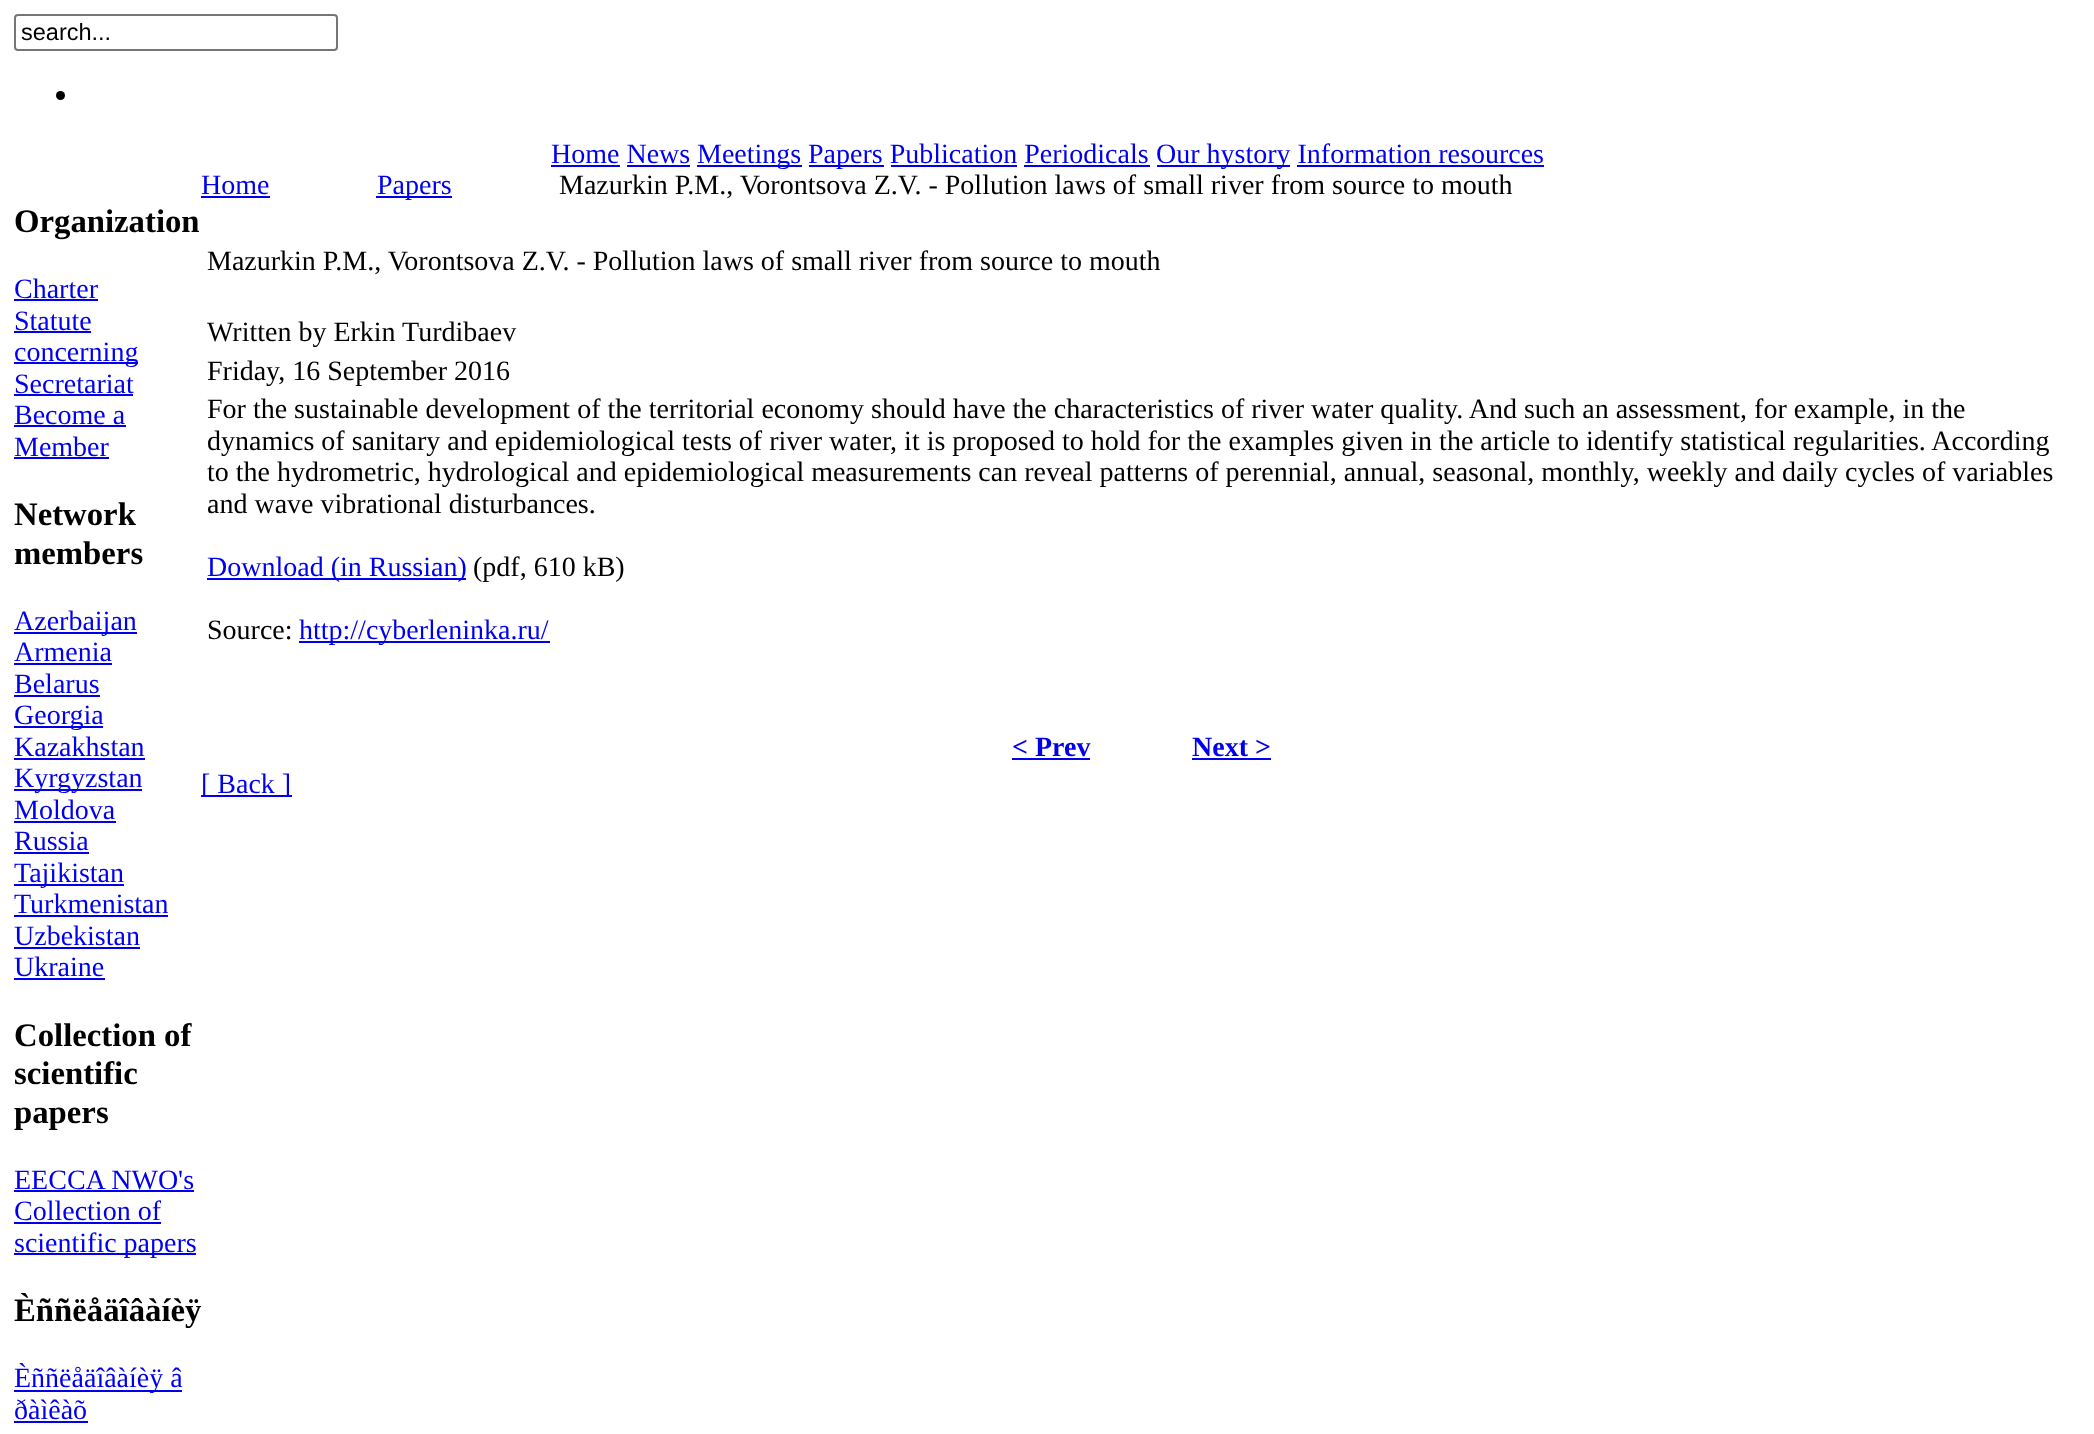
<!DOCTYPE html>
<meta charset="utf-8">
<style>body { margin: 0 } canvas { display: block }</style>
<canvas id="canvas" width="2094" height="1434"></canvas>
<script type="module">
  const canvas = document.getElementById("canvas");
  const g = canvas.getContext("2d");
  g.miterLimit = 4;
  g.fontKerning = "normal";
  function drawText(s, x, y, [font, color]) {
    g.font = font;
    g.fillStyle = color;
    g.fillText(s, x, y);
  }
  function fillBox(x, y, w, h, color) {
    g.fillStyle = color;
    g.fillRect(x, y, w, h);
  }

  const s1 = ["23.5px Liberation Sans", "#000000"];
  const s2 = ["28px Liberation Serif", "#0000EE"];
  const s3 = ["bold 32.75px Liberation Serif", "#000000"];
  const s4 = ["28px Liberation Serif", "#000000"];
  const s5 = ["bold 28px Liberation Serif", "#0000EE"];

  fillBox(0, 0, 2094, 1434, "#FFFFFF");
  g.beginPath();
  g.roundRect(15, 15, 322, 35, 3);
  g.strokeStyle = "#767676";
  g.lineWidth = 2;
  g.stroke();
  drawText("search...", 21, 40, s1);
  g.beginPath();
  g.arc(60.5, 95.5, 4.5, 0, Math.PI * 2);
  g.fill();
  drawText("Home News", 551, 163, s2);
  fillBox(551, 165, 69, 2, "#0000EE");
  fillBox(697, 165, 105, 2, "#0000EE");
  drawText("Meetings", 697, 163, s2);
  fillBox(809, 165, 75, 2, "#0000EE");
  drawText("Papers Publication Periodicals", 808, 163, s2);
  fillBox(1157, 165, 133, 2, "#0000EE");
  drawText("Our hystory Information resources", 1156, 163, s2);
  fillBox(627, 165, 63, 2, "#0000EE");
  fillBox(891, 165, 126, 2, "#0000EE");
  fillBox(1024, 165, 126, 2, "#0000EE");
  fillBox(1297, 165, 247, 2, "#0000EE");
  drawText("Organization", 14, 232, s3);
  drawText("Charter", 14, 298, s2);
  fillBox(14, 299, 84, 2, "#0000EE");
  drawText("Statute", 14, 330, s2);
  fillBox(14, 331, 77, 2, "#0000EE");
  fillBox(14, 362, 124, 2, "#0000EE");
  drawText("concerning", 14, 361, s2);
  drawText("Secretariat", 14, 393, s2);
  fillBox(14, 394, 119, 2, "#0000EE");
  drawText("Become a", 14, 424, s2);
  fillBox(14, 425, 112, 2, "#0000EE");
  drawText("Member", 14, 456, s2);
  fillBox(14, 457, 95, 2, "#0000EE");
  drawText("Network", 14, 525, s3);
  drawText("members", 14, 564, s3);
  fillBox(14, 632, 123, 2, "#0000EE");
  drawText("Azerbaijan", 14, 630, s2);
  drawText("Armenia", 14, 661, s2);
  fillBox(14, 663, 98, 2, "#0000EE");
  drawText("Belarus", 14, 693, s2);
  fillBox(14, 695, 86, 2, "#0000EE");
  fillBox(14, 726, 89, 2, "#0000EE");
  drawText("Georgia", 14, 724, s2);
  drawText("Kazakhstan", 14, 756, s2);
  fillBox(14, 758, 131, 2, "#0000EE");
  fillBox(14, 789, 128, 2, "#0000EE");
  drawText("Kyrgyzstan", 14, 787, s2);
  drawText("Moldova", 14, 819, s2);
  fillBox(14, 821, 102, 2, "#0000EE");
  drawText("Russia", 14, 850, s2);
  fillBox(14, 852, 75, 2, "#0000EE");
  fillBox(14, 884, 110, 2, "#0000EE");
  drawText("Tajikistan", 14, 882, s2);
  drawText("Turkmenistan", 14, 913, s2);
  fillBox(14, 915, 154, 2, "#0000EE");
  drawText("Uzbekistan", 14, 945, s2);
  fillBox(14, 947, 126, 2, "#0000EE");
  drawText("Ukraine", 14, 976, s2);
  fillBox(14, 978, 91, 2, "#0000EE");
  drawText("Collection of", 14, 1046, s3);
  drawText("scientific", 14, 1084, s3);
  drawText("papers", 14, 1123, s3);
  drawText("EECCA NWO's", 14, 1189, s2);
  fillBox(14, 1190, 180, 2, "#0000EE");
  drawText("Collection of", 14, 1220, s2);
  fillBox(14, 1222, 147, 2, "#0000EE");
  fillBox(14, 1253, 182, 2, "#0000EE");
  drawText("scientific papers", 14, 1252, s2);
  drawText("Èññëåäîâàíèÿ", 14, 1321, s3);
  fillBox(14, 1390, 168, 2, "#0000EE");
  drawText("Èññëåäîâàíèÿ â", 14, 1387, s2);
  drawText("ðàìêàõ", 14, 1419, s2);
  fillBox(14, 1421, 74, 2, "#0000EE");
  drawText("Home", 201, 194, s2);
  fillBox(201, 196, 69, 2, "#0000EE");
  fillBox(376, 196, 76, 2, "#0000EE");
  drawText("Papers", 377, 194, s2);
  drawText("Mazurkin P.M., Vorontsova Z.V. - Pollution laws of small river from source to mouth", 559, 194, s4);
  drawText("Mazurkin P.M., Vorontsova Z.V. - Pollution laws of small river from source to mouth", 207, 270, s4);
  drawText("Written by Erkin Turdibaev", 207, 341, s4);
  drawText("Friday, 16 September 2016", 207, 380, s4);
  drawText("For the sustainable development of the territorial economy should have the characteristics of river water quality. And such an assessment, for example, in the", 207, 418, s4);
  drawText("dynamics of sanitary and epidemiological tests of river water, it is proposed to hold for the examples given in the article to identify statistical regularities. According", 207, 450, s4);
  drawText("to the hydrometric, hydrological and epidemiological measurements can reveal patterns of perennial, annual, seasonal, monthly, weekly and daily cycles of variables", 207, 481, s4);
  drawText("and wave vibrational disturbances.", 207, 513, s4);
  fillBox(207, 578, 259, 2, "#0000EE");
  drawText("Download (in Russian)", 207, 576, s2);
  drawText("(pdf, 610 kB)", 473, 576, s4);
  drawText("Source:", 207, 639, s4);
  fillBox(299, 641, 251, 2, "#0000EE");
  drawText("http://cyberleninka.ru/", 299, 639, s2);
  drawText("< Prev", 1012, 756, s5);
  fillBox(1012, 758, 78, 2, "#0000EE");
  drawText("Next >", 1192, 756, s5);
  fillBox(1192, 758, 79, 2, "#0000EE");
  fillBox(201, 795, 91, 2, "#0000EE");
  drawText("[ Back ]", 201, 793, s2);
</script>
